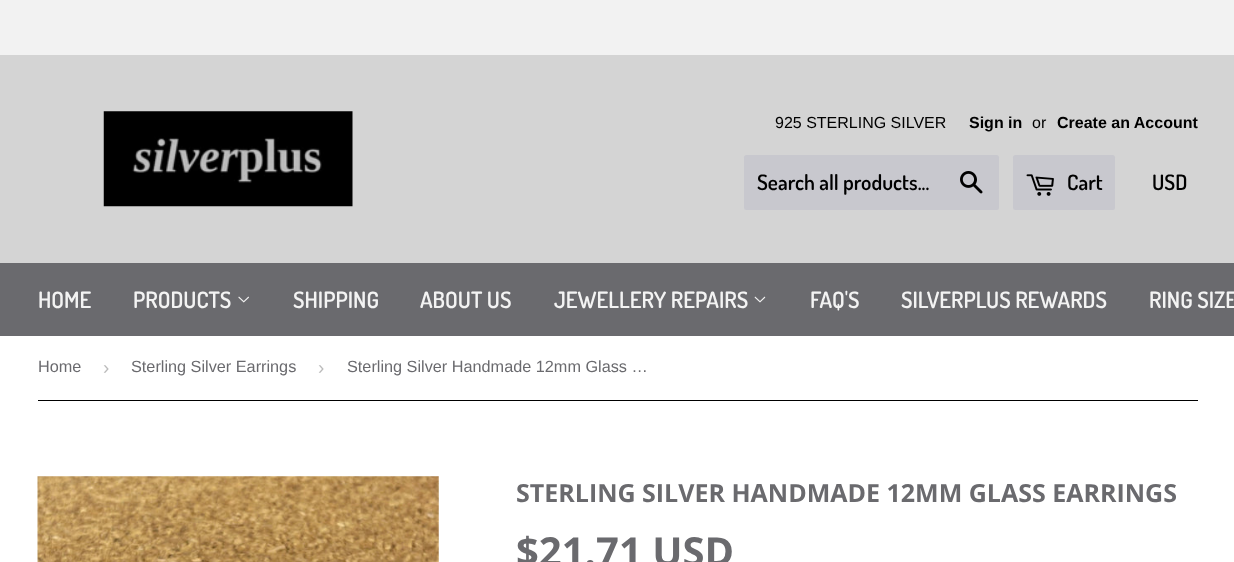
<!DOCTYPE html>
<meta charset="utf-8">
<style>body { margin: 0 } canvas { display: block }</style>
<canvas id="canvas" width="1234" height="562"></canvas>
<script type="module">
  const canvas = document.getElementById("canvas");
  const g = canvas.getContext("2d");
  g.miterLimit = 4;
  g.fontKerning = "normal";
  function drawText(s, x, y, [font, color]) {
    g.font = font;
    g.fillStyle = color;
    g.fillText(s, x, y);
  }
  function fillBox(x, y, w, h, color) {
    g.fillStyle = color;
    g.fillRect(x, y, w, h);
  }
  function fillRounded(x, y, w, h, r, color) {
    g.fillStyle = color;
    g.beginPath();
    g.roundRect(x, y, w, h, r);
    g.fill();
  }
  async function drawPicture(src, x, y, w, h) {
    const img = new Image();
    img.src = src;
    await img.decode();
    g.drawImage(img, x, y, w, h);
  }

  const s1 = ["16px Liberation Sans", "#000000"];
  const s2 = ["bold 16px Liberation Sans", "#000000"];
  const s3 = ["600 21.25px Dosis", "#000000"];
  const s4 = ["600 22.5px Dosis", "#F3F3F3"];
  const s5 = ["16.25px Liberation Sans", "#6A6A6E"];
  const s6 = ["19px Liberation Sans", "#BBBBBB"];
  const s7 = ["bold 25px Open Sans", "#6A6A6E"];
  const s8 = ["bold 40px Open Sans", "#6A6A6E"];

  fillBox(0, 0, 1234, 562, "#FFFFFF");
  fillBox(0, 0, 1234, 55, "#F2F2F2");
  fillBox(0, 55, 1234, 208, "#D4D4D4");
  await drawPicture("pic1.png", 103, 111, 250, 96);
  drawText("925 STERLING SILVER", 775, 128, s1);
  drawText("Sign in", 969, 128, s2);
  drawText("or", 1032, 128, s1);
  drawText("Create an Account", 1057, 128, s2);
  fillRounded(744, 155, 255, 55, 2.5, "#C8C8CE");
  drawText("Search all products...", 757, 190, s3);
  await drawPicture("pic2.png", 960, 171, 23, 23);
  fillRounded(1013, 155, 102, 55, 2.5, "#C8C8CE");
  await drawPicture("pic3.png", 1026, 174, 28, 22);
  drawText("Cart", 1067, 190, s3);
  drawText("USD", 1152, 190, s3);
  fillBox(0, 263, 1234, 73, "#6A6A6E");
  drawText("HOME", 38, 308, s4);
  drawText("PRODUCTS", 133, 308, s4);
  await drawPicture("pic4.png", 238, 296, 11, 7);
  drawText("SHIPPING", 293, 308, s4);
  drawText("ABOUT US", 420, 308, s4);
  drawText("JEWELLERY REPAIRS", 554, 308, s4);
  await drawPicture("pic5.png", 754, 296, 12, 7);
  drawText("FAQ'S", 810, 308, s4);
  drawText("SILVERPLUS REWARDS", 901, 308, s4);
  drawText("RING SIZE", 1149, 308, s4);
  fillBox(38, 400, 1160, 1, "#000000");
  drawText("Home", 38, 372, s5);
  drawText("›", 103, 374, s6);
  drawText("Sterling Silver Earrings", 131, 372, s5);
  drawText("›", 318, 374, s6);
  drawText("Sterling Silver Handmade 12mm Glass …", 347, 372, s5);
  await drawPicture("pic6.png", 37, 476, 402, 86);
  drawText("STERLING SILVER HANDMADE 12MM GLASS EARRINGS", 516, 502, s7);
  drawText("$21.71 USD", 516, 566, s8);
</script>
